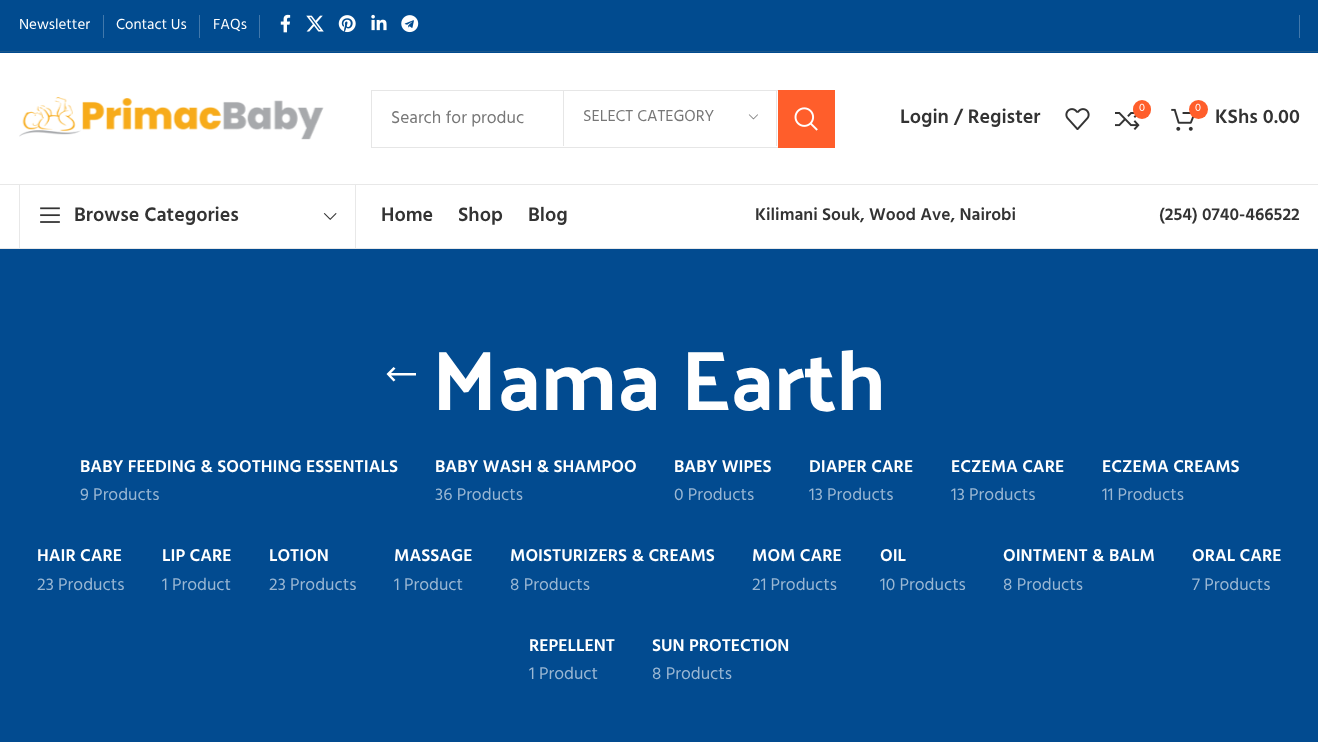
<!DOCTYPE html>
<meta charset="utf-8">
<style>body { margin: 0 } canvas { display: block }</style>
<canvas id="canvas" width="1318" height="742"></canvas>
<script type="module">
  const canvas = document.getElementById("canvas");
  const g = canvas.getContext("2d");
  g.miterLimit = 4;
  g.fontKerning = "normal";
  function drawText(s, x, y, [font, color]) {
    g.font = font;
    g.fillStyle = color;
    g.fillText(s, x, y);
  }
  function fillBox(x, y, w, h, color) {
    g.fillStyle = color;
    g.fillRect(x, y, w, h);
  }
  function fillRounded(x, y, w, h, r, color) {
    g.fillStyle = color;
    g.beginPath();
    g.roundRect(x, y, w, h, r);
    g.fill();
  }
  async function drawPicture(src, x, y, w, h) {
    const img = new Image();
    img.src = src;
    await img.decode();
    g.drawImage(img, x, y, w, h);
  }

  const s1 = ["15px Hind", "#FFFFFF"];
  const s2 = ["17.5px Hind", "#777777"];
  const s3 = ["16.25px Hind", "#777777"];
  const s4 = ["600 20px Hind", "#333333"];
  const s5 = ["11px Hind", "#FFFFFF"];
  const s6 = ["600 17.5px Hind", "#333333"];
  const s7 = ["85px Palanquin Dark", "#FFFFFF"];
  const s8 = ["600 17.5px Hind", "#FFFFFF"];
  const s9 = ["17.5px Hind", "#9AB7D3"];

  fillBox(0, 0, 1318, 742, "#FFFFFF");
  fillBox(0, 0, 1318, 53, "#014B8F");
  fillBox(0, 51, 1318, 1, "#1B568A");
  drawText("Newsletter", 19, 29, s1);
  fillBox(103, 15, 1, 23, "#4178AB");
  drawText("Contact Us", 116, 29, s1);
  fillBox(199, 15, 1, 23, "#4178AB");
  drawText("FAQs", 213, 29, s1);
  fillBox(259, 15, 1, 23, "#4178AB");
  await drawPicture("pic1.png", 280, 14, 11, 19);
  await drawPicture("pic2.png", 306, 15, 18, 17);
  await drawPicture("pic3.png", 338, 15, 18, 18);
  await drawPicture("pic4.png", 371, 14, 16, 17);
  await drawPicture("pic5.png", 401, 15, 18, 18);
  fillBox(1299, 15, 1, 23, "#4178AB");
  fillBox(0, 184, 1318, 1, "#E8E8E8");
  await drawPicture("pic6.png", 19, 97, 305, 43);
  g.strokeStyle = "#E6E6E6";
  g.strokeRect(371.5, 90.5, 463, 57);
  drawText("Search for produc", 391, 123, s2);
  fillBox(776, 91, 1, 55, "#E6E6E6");
  fillBox(563, 91, 1, 55, "#E6E6E6");
  drawText("SELECT CATEGORY", 583, 121, s3);
  await drawPicture("pic7.png", 748, 114, 10, 6);
  fillBox(778, 90, 57, 58, "#FF5E2B");
  await drawPicture("pic8.png", 794, 107, 24, 24);
  drawText("Login / Register", 900, 123, s4);
  await drawPicture("pic9.png", 1065, 108, 25, 22);
  await drawPicture("pic10.png", 1115, 112, 25, 18);
  fillRounded(1133, 100, 18, 19, 9, "#FF5E2B");
  drawText("0", 1139, 111, s5);
  await drawPicture("pic11.png", 1171, 108, 24, 23);
  g.fillStyle = "#FF5E2B";
  g.beginPath();
  g.arc(1198.5, 109.5, 9.5, 0, Math.PI * 2);
  g.fill();
  drawText("0", 1195, 111, s5);
  drawText("KShs 0.00", 1215, 123, s4);
  fillBox(0, 248, 1318, 1, "#E8E8E8");
  g.strokeStyle = "#E8E8E8";
  g.strokeRect(19.5, 184.5, 336, 64);
  await drawPicture("pic12.png", 40, 207, 20, 16);
  drawText("Browse Categories", 74, 221, s4);
  await drawPicture("pic13.png", 323, 213, 14, 7);
  drawText("Home", 381, 221, s4);
  drawText("Shop", 458, 221, s4);
  drawText("Blog", 528, 221, s4);
  drawText("Kilimani Souk, Wood Ave, Nairobi", 755, 220, s6);
  drawText("(254) 0740-466522", 1159, 220, s6);
  fillBox(0, 249, 1318, 493, "#024B90");
  g.fillStyle = "#FFFFFF";
  g.beginPath();
  g.moveTo(395.5, 380);
  g.lineTo(391, 375.5);
  g.lineTo(416, 375.5);
  g.lineTo(416, 373);
  g.lineTo(391, 373);
  g.lineTo(395.5, 368.5);
  g.lineTo(393.5, 367);
  g.lineTo(386.5, 374);
  g.lineTo(393.5, 381.5);
  g.closePath();
  g.fill();
  drawText("Mama Earth", 432, 410, s7);
  drawText("BABY FEEDING & SOOTHING ESSENTIALS", 80, 472, s8);
  drawText("9 Products", 80, 500, s9);
  drawText("BABY WASH & SHAMPOO", 435, 472, s8);
  drawText("36 Products", 435, 500, s9);
  drawText("BABY WIPES", 674, 472, s8);
  drawText("0 Products", 674, 500, s9);
  drawText("DIAPER CARE", 809, 472, s8);
  drawText("13 Products", 809, 500, s9);
  drawText("ECZEMA CARE", 951, 472, s8);
  drawText("13 Products", 951, 500, s9);
  drawText("ECZEMA CREAMS", 1102, 472, s8);
  drawText("11 Products", 1102, 500, s9);
  drawText("HAIR CARE", 37, 561, s8);
  drawText("23 Products", 37, 590, s9);
  drawText("LIP CARE", 162, 561, s8);
  drawText("1 Product", 162, 590, s9);
  drawText("LOTION", 269, 561, s8);
  drawText("23 Products", 269, 590, s9);
  drawText("MASSAGE", 394, 561, s8);
  drawText("1 Product", 394, 590, s9);
  drawText("MOISTURIZERS & CREAMS", 510, 561, s8);
  drawText("8 Products", 510, 590, s9);
  drawText("MOM CARE", 752, 561, s8);
  drawText("21 Products", 752, 590, s9);
  drawText("OIL", 880, 561, s8);
  drawText("10 Products", 880, 590, s9);
  drawText("OINTMENT & BALM", 1003, 561, s8);
  drawText("8 Products", 1003, 590, s9);
  drawText("ORAL CARE", 1192, 561, s8);
  drawText("7 Products", 1192, 590, s9);
  drawText("REPELLENT", 529, 651, s8);
  drawText("1 Product", 529, 679, s9);
  drawText("SUN PROTECTION", 652, 651, s8);
  drawText("8 Products", 652, 679, s9);
</script>
